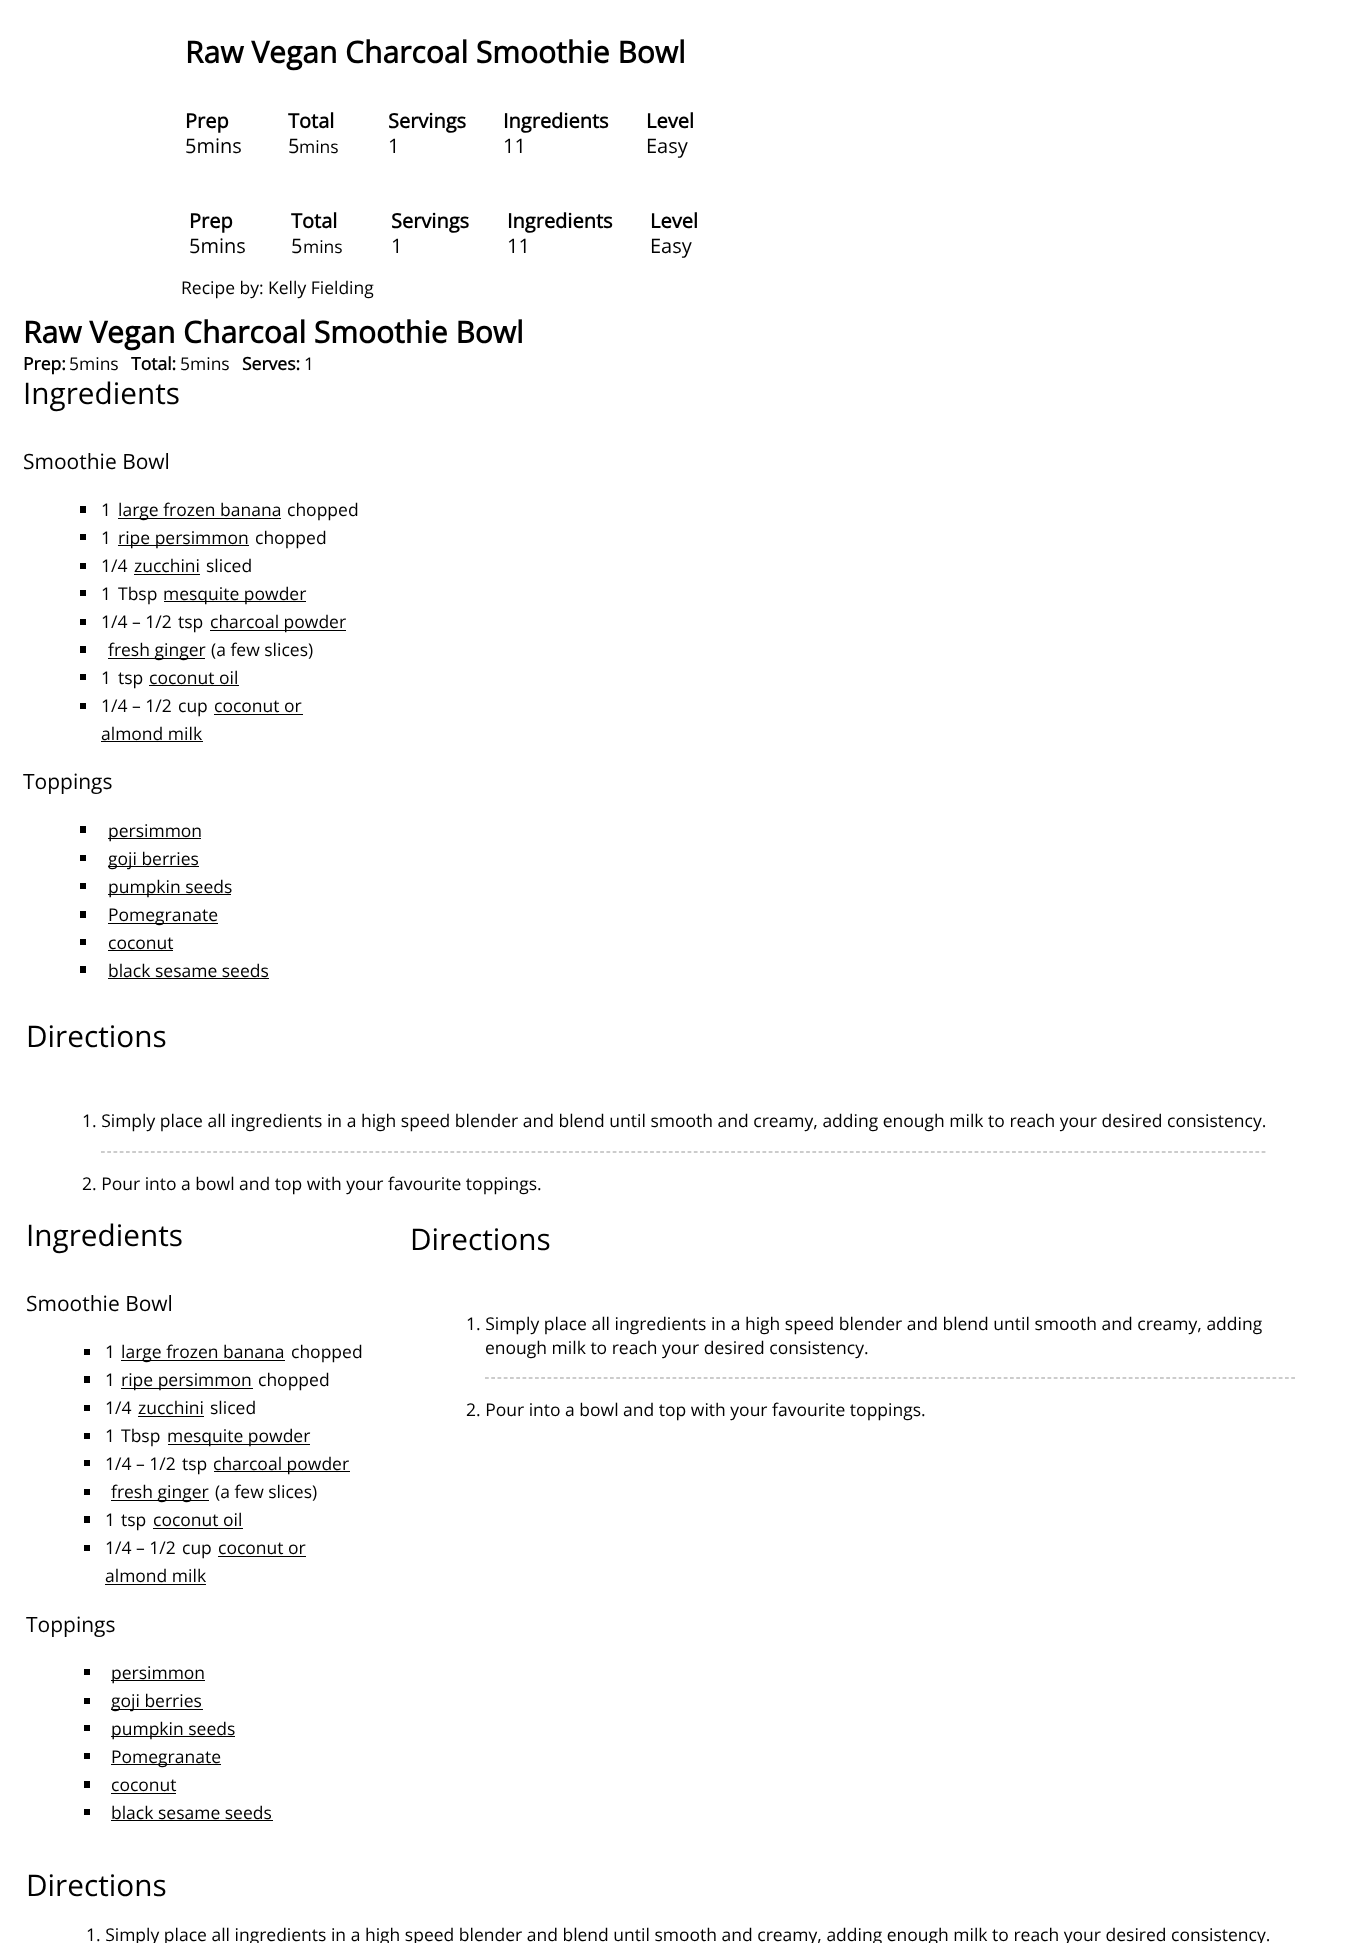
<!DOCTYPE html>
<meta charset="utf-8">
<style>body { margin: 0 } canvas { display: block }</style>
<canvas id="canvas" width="1350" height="1943"></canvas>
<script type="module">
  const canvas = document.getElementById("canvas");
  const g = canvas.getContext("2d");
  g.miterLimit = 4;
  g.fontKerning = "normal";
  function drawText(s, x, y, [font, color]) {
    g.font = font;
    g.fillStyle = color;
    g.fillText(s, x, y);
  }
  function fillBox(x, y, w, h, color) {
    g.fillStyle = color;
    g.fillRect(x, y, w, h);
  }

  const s1 = ["bold 30px Open Sans", "#000000"];
  const s2 = ["bold 20px Open Sans", "#000000"];
  const s3 = ["20px Open Sans", "#000000"];
  const s4 = ["17.5px Open Sans", "#000000"];
  const s5 = ["bold 17.5px Open Sans", "#000000"];
  const s6 = ["29.75px Open Sans", "#000000"];
  const s7 = ["21px Open Sans", "#000000"];

  fillBox(0, 0, 1350, 1943, "#FFFFFF");
  drawText("Raw Vegan Charcoal Smoothie Bowl", 185, 63, s1);
  drawText("Prep", 185, 128, s2);
  drawText("5mins", 185, 153, s3);
  drawText("Total", 288, 128, s2);
  drawText("5", 288, 153, s3);
  drawText("mins", 299, 153, s4);
  drawText("Servings", 388, 128, s2);
  drawText("1", 388, 153, s3);
  drawText("Ingredients", 503, 128, s2);
  drawText("11", 503, 153, s3);
  drawText("Level", 646, 128, s2);
  drawText("Easy", 646, 153, s3);
  drawText("Prep", 189, 228, s2);
  drawText("5mins", 189, 253, s3);
  drawText("Total", 291, 228, s2);
  drawText("5", 291, 253, s3);
  drawText("mins", 303, 253, s4);
  drawText("Servings", 391, 228, s2);
  drawText("1", 391, 253, s3);
  drawText("Ingredients", 507, 228, s2);
  drawText("11", 507, 253, s3);
  drawText("Level", 650, 228, s2);
  drawText("Easy", 650, 253, s3);
  drawText("Recipe by:", 181, 294, s4);
  drawText("Kelly Fielding", 268, 294, s4);
  drawText("Raw Vegan Charcoal Smoothie Bowl", 23, 343, s1);
  drawText("Prep:", 23, 370, s5);
  drawText("5mins", 69, 370, s4);
  drawText("Total:", 131, 370, s5);
  drawText("5mins", 180, 370, s4);
  drawText("Serves:", 242, 370, s5);
  drawText("1", 304, 370, s4);
  drawText("Ingredients", 23, 404, s6);
  drawText("Smoothie Bowl", 23, 469, s7);
  fillBox(80, 506, 6, 7, "#000000");
  drawText("1", 101, 516, s4);
  fillBox(118, 518, 163, 1, "#000000");
  drawText("large frozen banana", 118, 516, s4);
  drawText("chopped", 287, 516, s4);
  fillBox(80, 534, 6, 6, "#000000");
  drawText("1", 101, 544, s4);
  fillBox(118, 545, 131, 1, "#000000");
  drawText("ripe persimmon", 118, 544, s4);
  drawText("chopped", 255, 544, s4);
  fillBox(80, 563, 6, 6, "#000000");
  drawText("1/4", 101, 572, s4);
  drawText("zucchini", 134, 572, s4);
  fillBox(134, 574, 66, 1, "#000000");
  drawText("sliced", 206, 572, s4);
  fillBox(80, 590, 6, 6, "#000000");
  drawText("1", 101, 600, s4);
  drawText("Tbsp", 118, 600, s4);
  fillBox(164, 601, 142, 1, "#000000");
  drawText("mesquite powder", 163, 600, s4);
  fillBox(80, 619, 6, 6, "#000000");
  drawText("1/4 – 1/2", 101, 628, s4);
  drawText("tsp", 178, 628, s4);
  fillBox(210, 630, 136, 1, "#000000");
  drawText("charcoal powder", 210, 628, s4);
  fillBox(80, 646, 6, 7, "#000000");
  fillBox(108, 658, 97, 1, "#000000");
  drawText("fresh ginger", 108, 656, s4);
  drawText("(a few slices)", 211, 656, s4);
  fillBox(80, 674, 6, 6, "#000000");
  drawText("1", 101, 684, s4);
  drawText("tsp", 118, 684, s4);
  drawText("coconut oil", 149, 684, s4);
  fillBox(149, 685, 90, 1, "#000000");
  fillBox(80, 703, 6, 6, "#000000");
  drawText("1/4 – 1/2", 101, 712, s4);
  drawText("cup", 178, 712, s4);
  drawText("coconut or", 214, 712, s4);
  fillBox(214, 714, 89, 1, "#000000");
  drawText("almond milk", 101, 740, s4);
  fillBox(101, 741, 102, 1, "#000000");
  drawText("Toppings", 23, 789, s7);
  fillBox(80, 826, 6, 7, "#000000");
  fillBox(108, 838, 93, 1, "#000000");
  drawText("persimmon", 108, 837, s4);
  fillBox(80, 855, 6, 6, "#000000");
  fillBox(108, 866, 91, 1, "#000000");
  drawText("goji berries", 108, 865, s4);
  fillBox(80, 883, 6, 6, "#000000");
  fillBox(108, 894, 123, 1, "#000000");
  drawText("pumpkin seeds", 108, 893, s4);
  fillBox(80, 911, 6, 7, "#000000");
  fillBox(108, 923, 110, 1, "#000000");
  drawText("Pomegranate", 108, 921, s4);
  fillBox(80, 939, 6, 6, "#000000");
  drawText("coconut", 108, 949, s4);
  fillBox(108, 950, 65, 1, "#000000");
  fillBox(80, 966, 6, 7, "#000000");
  drawText("black sesame seeds", 108, 977, s4);
  fillBox(108, 978, 161, 1, "#000000");
  drawText("Directions", 26, 1047, s6);
  g.beginPath();
  g.moveTo(101, 1152);
  g.lineTo(1266, 1152);
  g.strokeStyle = "#999999";
  g.lineWidth = 1.2;
  g.setLineDash([3.75, 2.49]);
  g.stroke();
  drawText("1. Simply place all ingredients in a high speed blender and blend until smooth and creamy, adding enough milk to reach your desired consistency.", 82, 1127, s4);
  drawText("2. Pour into a bowl and top with your favourite toppings.", 82, 1190, s4);
  drawText("Ingredients", 26, 1246, s6);
  drawText("Smoothie Bowl", 26, 1311, s7);
  fillBox(84, 1349, 6, 6, "#000000");
  drawText("1", 105, 1358, s4);
  fillBox(121, 1360, 164, 1, "#000000");
  drawText("large frozen banana", 121, 1358, s4);
  drawText("chopped", 291, 1358, s4);
  fillBox(84, 1376, 6, 7, "#000000");
  drawText("1", 105, 1386, s4);
  fillBox(121, 1388, 132, 1, "#000000");
  drawText("ripe persimmon", 121, 1386, s4);
  drawText("chopped", 258, 1386, s4);
  fillBox(84, 1405, 6, 6, "#000000");
  drawText("1/4", 105, 1414, s4);
  drawText("zucchini", 138, 1414, s4);
  fillBox(138, 1416, 66, 1, "#000000");
  drawText("sliced", 210, 1414, s4);
  fillBox(84, 1433, 6, 6, "#000000");
  drawText("1", 105, 1442, s4);
  drawText("Tbsp", 121, 1442, s4);
  fillBox(168, 1444, 142, 1, "#000000");
  drawText("mesquite powder", 167, 1442, s4);
  fillBox(84, 1460, 6, 6, "#000000");
  drawText("1/4 – 1/2", 105, 1470, s4);
  drawText("tsp", 182, 1470, s4);
  fillBox(214, 1471, 136, 1, "#000000");
  drawText("charcoal powder", 213, 1470, s4);
  fillBox(84, 1489, 6, 6, "#000000");
  fillBox(111, 1500, 98, 1, "#000000");
  drawText("fresh ginger", 111, 1498, s4);
  drawText("(a few slices)", 215, 1498, s4);
  fillBox(84, 1516, 6, 7, "#000000");
  drawText("1", 105, 1526, s4);
  drawText("tsp", 121, 1526, s4);
  drawText("coconut oil", 153, 1526, s4);
  fillBox(153, 1528, 90, 1, "#000000");
  fillBox(84, 1545, 6, 6, "#000000");
  drawText("1/4 – 1/2", 105, 1554, s4);
  drawText("cup", 182, 1554, s4);
  drawText("coconut or", 218, 1554, s4);
  fillBox(218, 1556, 88, 1, "#000000");
  drawText("almond milk", 105, 1582, s4);
  fillBox(105, 1584, 101, 1, "#000000");
  drawText("Toppings", 26, 1632, s7);
  fillBox(84, 1669, 6, 6, "#000000");
  fillBox(111, 1680, 94, 1, "#000000");
  drawText("persimmon", 111, 1679, s4);
  fillBox(84, 1698, 6, 6, "#000000");
  fillBox(111, 1709, 92, 1, "#000000");
  drawText("goji berries", 111, 1707, s4);
  fillBox(84, 1725, 6, 6, "#000000");
  fillBox(111, 1736, 124, 1, "#000000");
  drawText("pumpkin seeds", 111, 1735, s4);
  fillBox(84, 1753, 6, 6, "#000000");
  fillBox(111, 1764, 110, 1, "#000000");
  drawText("Pomegranate", 111, 1763, s4);
  fillBox(84, 1781, 6, 7, "#000000");
  drawText("coconut", 111, 1791, s4);
  fillBox(111, 1793, 65, 1, "#000000");
  fillBox(84, 1809, 6, 6, "#000000");
  drawText("black sesame seeds", 111, 1819, s4);
  fillBox(111, 1820, 162, 1, "#000000");
  drawText("Directions", 410, 1250, s6);
  g.beginPath();
  g.moveTo(485, 1378);
  g.lineTo(1295, 1378);
  g.setLineDash([3.75, 2.5]);
  g.stroke();
  drawText("1. Simply place all ingredients in a high speed blender and blend until smooth and creamy, adding", 466, 1330, s4);
  drawText("enough milk to reach your desired consistency.", 485, 1354, s4);
  drawText("2. Pour into a bowl and top with your favourite toppings.", 466, 1416, s4);
  drawText("Directions", 26, 1896, s6);
  drawText("1. Simply place all ingredients in a high speed blender and blend until smooth and creamy, adding enough milk to reach your desired consistency.", 86, 1941, s4);
</script>
